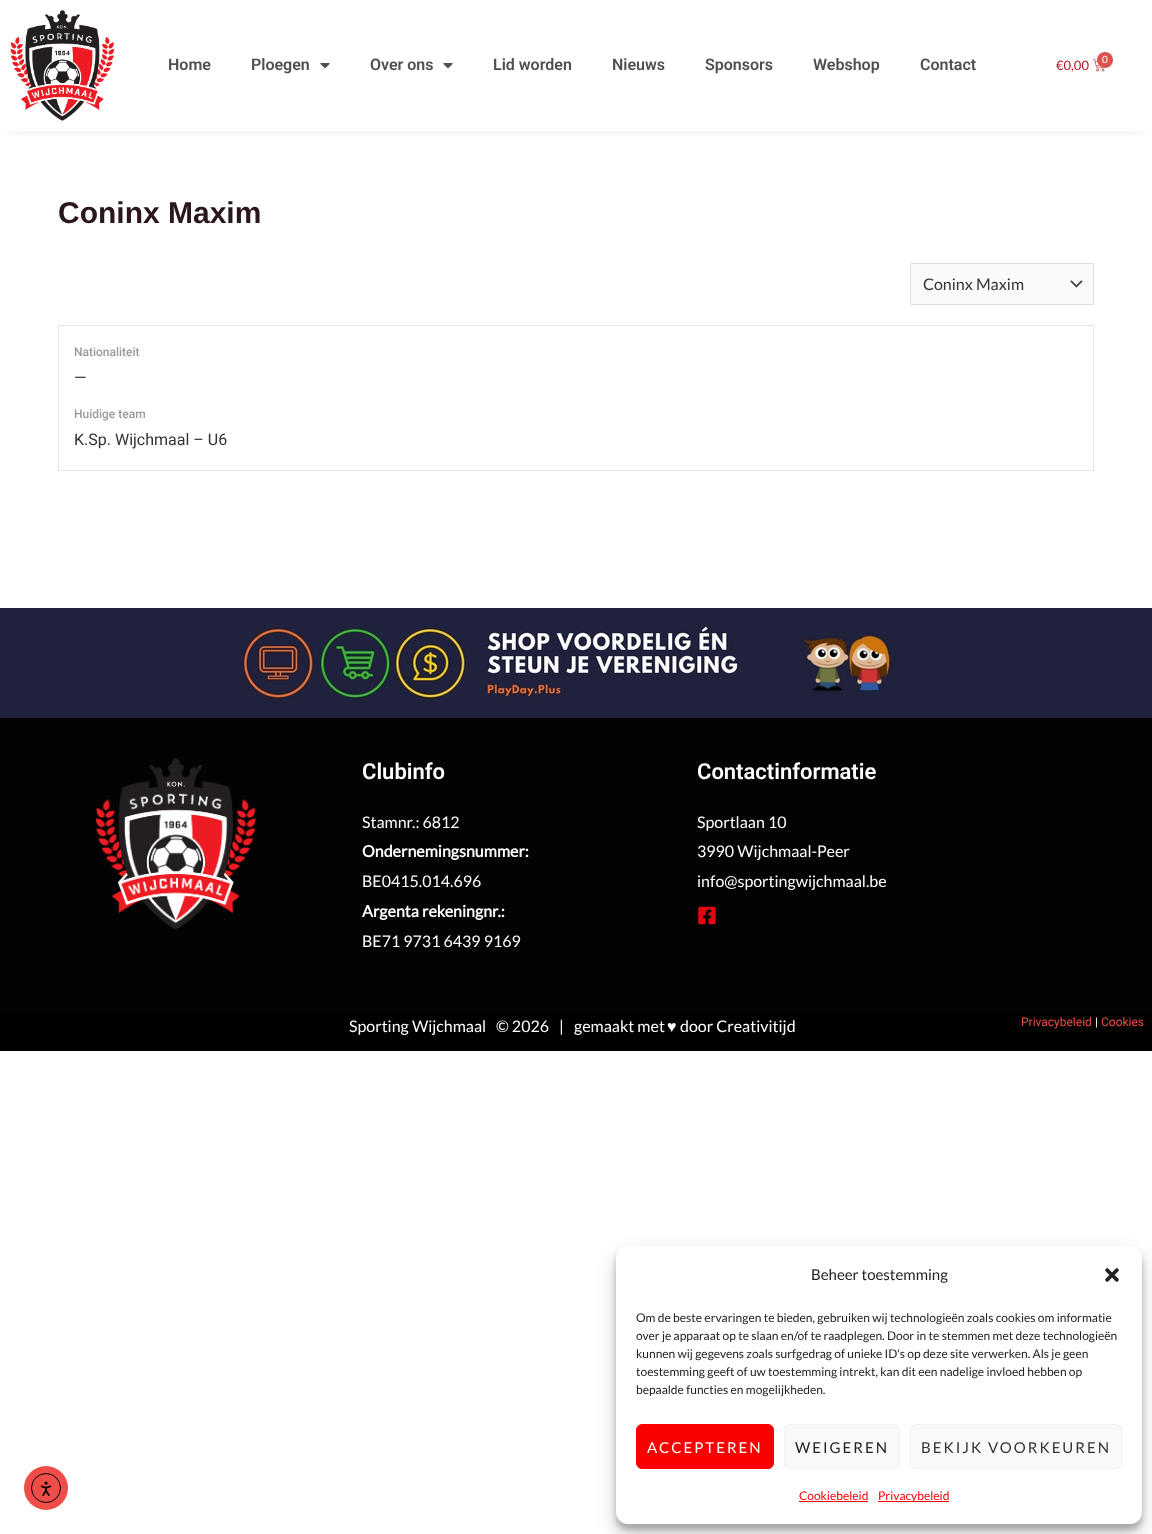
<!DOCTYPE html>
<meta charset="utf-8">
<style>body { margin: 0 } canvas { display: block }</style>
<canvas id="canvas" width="1152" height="1534"></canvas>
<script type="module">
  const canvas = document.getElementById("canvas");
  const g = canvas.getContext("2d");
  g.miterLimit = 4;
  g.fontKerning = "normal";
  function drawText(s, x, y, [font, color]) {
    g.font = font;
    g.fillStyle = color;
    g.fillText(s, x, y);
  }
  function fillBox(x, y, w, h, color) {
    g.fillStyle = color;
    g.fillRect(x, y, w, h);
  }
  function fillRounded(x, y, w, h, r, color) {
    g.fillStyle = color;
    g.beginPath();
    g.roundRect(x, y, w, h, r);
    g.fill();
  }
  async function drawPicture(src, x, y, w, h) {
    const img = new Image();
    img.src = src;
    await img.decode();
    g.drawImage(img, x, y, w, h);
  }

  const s1 = ["600 16px Roboto", "#4F4F4F"];
  const s2 = ["13px Lato", "#B1151B"];
  const s3 = ["10px Lato", "#FFFFFF"];
  const s4 = ["bold 30px Liberation Sans", "#2B161B"];
  const s5 = ["16px Lato", "#333333"];
  const s6 = ["500 12px Roboto", "#999999"];
  const s7 = ["16px Roboto", "#333333"];
  const s8 = ["600 22px Roboto", "#FFFFFF"];
  const s9 = ["16px Lato", "#FFFFFF"];
  const s10 = ["bold 16px Lato", "#FFFFFF"];
  const s11 = ["16px Liberation Sans", "#FFFFFF"];
  const s12 = ["12px Roboto", "#EF4D48"];
  const s13 = ["12px Roboto", "#FFFFFF"];
  const s14 = ["15px Lato", "#222222"];
  const s15 = ["12px Lato", "#222222"];
  const s16 = ["15px Lato", "#FFFFFF"];
  const s17 = ["15px Lato", "#333333"];
  const s18 = ["12px Lato", "#FC0000"];

  fillBox(0, 0, 1152, 1534, "#FFFFFF");
  g.save();
  g.beginPath();
  g.rect(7, 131, 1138, 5);
  g.clip();
  g.fillStyle = "rgba(0, 0, 0, 0.18)";
  g.filter = "blur(10px)";
  g.beginPath();
  g.rect(7, 7, 1138, 117);
  g.fill();
  g.filter = "none";
  g.restore();
  await drawPicture("pic1.png", 10, 10, 105, 111);
  drawText("Home", 168, 70, s1);
  drawText("Ploegen", 251, 70, s1);
  await drawPicture("pic2.png", 320, 63, 10, 6);
  drawText("Over ons", 370, 70, s1);
  await drawPicture("pic2.png", 443, 63, 10, 6);
  drawText("Lid worden", 493, 70, s1);
  drawText("Nieuws", 612, 70, s1);
  drawText("Sponsors", 705, 70, s1);
  drawText("Webshop", 813, 70, s1);
  drawText("Contact", 920, 70, s1);
  drawText("€0,00", 1056, 70, s2);
  await drawPicture("pic3.png", 1093, 59, 12, 13);
  g.fillStyle = "#D9534F";
  g.beginPath();
  g.arc(1105, 60, 8, 0, Math.PI * 2);
  g.fill();
  drawText("0", 1102, 63, s3);
  drawText("Coninx Maxim", 58, 223, s4);
  fillRounded(910, 263, 184, 42, 2, "#FAFAFA");
  await drawPicture("pic4.png", 1070, 280, 13, 8);
  g.beginPath();
  g.roundRect(910.5, 263.5, 183, 41, 1.5);
  g.strokeStyle = "#DDDDDD";
  g.stroke();
  drawText("Coninx Maxim", 923, 290, s5);
  g.strokeStyle = "#E5E5E5";
  g.strokeRect(58.5, 325.5, 1035, 145);
  drawText("Nationaliteit", 74, 356, s6);
  drawText("—", 74, 383, s7);
  drawText("Huidige team", 74, 418, s6);
  drawText("K.Sp. Wijchmaal – U6", 74, 445, s7);
  fillBox(0, 608, 1152, 110, "#20213D");
  await drawPicture("pic5.png", 243, 625, 648, 74);
  fillBox(0, 718, 1152, 293, "#030303");
  await drawPicture("pic6.png", 95, 758, 162, 172);
  drawText("Clubinfo", 362, 779, s8);
  drawText("Stamnr.: 6812", 362, 828, s9);
  drawText("Ondernemingsnummer:", 362, 857, s10);
  drawText("BE0415.014.696", 362, 887, s9);
  drawText("Argenta rekeningnr.:", 362, 917, s10);
  drawText("BE71 9731 6439 9169", 362, 947, s9);
  drawText("Contactinformatie", 697, 779, s8);
  drawText("Sportlaan 10", 697, 828, s9);
  drawText("3990 Wijchmaal-Peer", 697, 857, s9);
  drawText("info@sportingwijchmaal.be", 697, 887, s9);
  await drawPicture("pic7.png", 698, 906, 18, 19);
  fillBox(0, 1011, 1152, 40, "#000000");
  drawText("Sporting Wijchmaal", 349, 1032, s9);
  drawText("© 2026", 496, 1032, s9);
  drawText("|", 559, 1032, s9);
  drawText("gemaakt met", 574, 1032, s9);
  drawText("♥", 667, 1032, s11);
  drawText("door Creativitijd", 680, 1032, s9);
  drawText("Privacybeleid", 1021, 1026, s12);
  drawText("|", 1095, 1026, s13);
  drawText("Cookies", 1101, 1026, s12);
  g.beginPath();
  g.arc(46, 1488, 22, 0, Math.PI * 2);
  g.fill();
  g.beginPath();
  g.arc(46, 1488, 14.5, 0, Math.PI * 2);
  g.strokeStyle = "#000000";
  g.stroke();
  await drawPicture("pic8.png", 40, 1481, 12, 15);
  g.fillStyle = "rgba(0, 0, 0, 0.23)";
  g.filter = "blur(3px)";
  g.beginPath();
  g.roundRect(616, 1252, 526, 278, 12);
  g.fill();
  g.filter = "none";
  g.fillStyle = "rgba(0, 0, 0, 0.19)";
  g.filter = "blur(10px)";
  g.beginPath();
  g.roundRect(616, 1256, 526, 278, 12);
  g.fill();
  g.filter = "none";
  fillRounded(616, 1246, 526, 278, 12, "#FFFFFF");
  drawText("Beheer toestemming", 811, 1280, s14);
  await drawPicture("pic9.png", 1105, 1268, 14, 14);
  drawText("Om de beste ervaringen te bieden, gebruiken wij technologieën zoals cookies om informatie", 636, 1322, s15);
  drawText("over je apparaat op te slaan en/of te raadplegen. Door in te stemmen met deze technologieën", 636, 1340, s15);
  drawText("kunnen wij gegevens zoals surfgedrag of unieke ID's op deze site verwerken. Als je geen", 636, 1358, s15);
  drawText("toestemming geeft of uw toestemming intrekt, kan dit een nadelige invloed hebben op", 636, 1376, s15);
  drawText("bepaalde functies en mogelijkheden.", 636, 1394, s15);
  g.fillStyle = "#FC0000";
  g.beginPath();
  g.roundRect(636.5, 1424.5, 137, 44, 5.5);
  g.fill();
  g.strokeStyle = "#FC0000";
  g.stroke();
  g.letterSpacing = "2px";
  drawText("ACCEPTEREN", 647, 1453, s16);
  g.fillStyle = "#F9F9F9";
  g.beginPath();
  g.roundRect(784.5, 1424.5, 115, 44, 5.5);
  g.fill();
  g.strokeStyle = "#F2F2F2";
  g.stroke();
  drawText("WEIGEREN", 795, 1453, s14);
  g.fillStyle = "#F9F9F9";
  g.beginPath();
  g.roundRect(910.5, 1424.5, 211, 44, 5.5);
  g.fill();
  g.stroke();
  drawText("BEKIJK VOORKEUREN", 921, 1453, s17);
  g.letterSpacing = "0px";
  drawText("Cookiebeleid", 799, 1500, s18);
  fillBox(799, 1501, 69, 1, "#FC0000");
  fillBox(878, 1501, 71, 1, "#FC0000");
  drawText("Privacybeleid", 878, 1500, s18);
</script>
